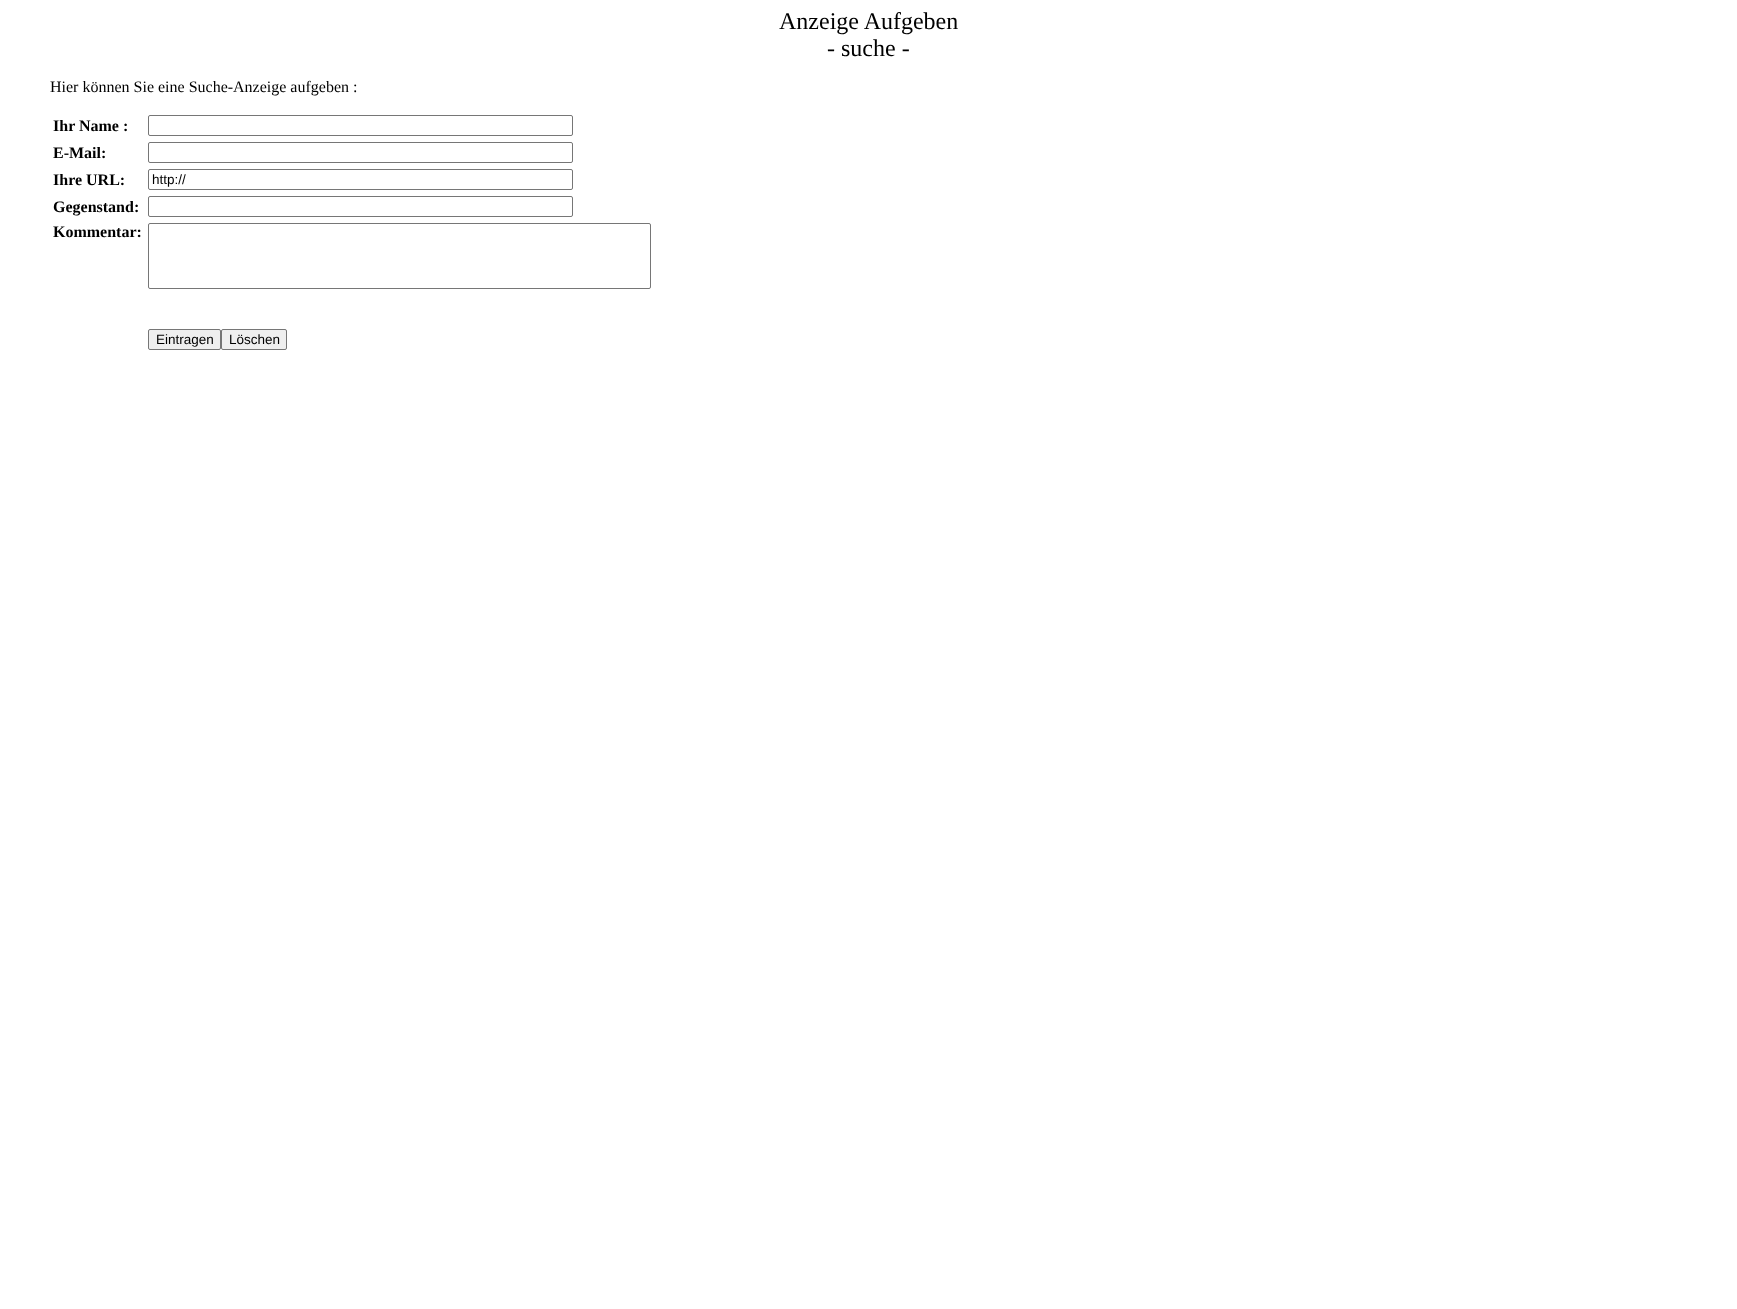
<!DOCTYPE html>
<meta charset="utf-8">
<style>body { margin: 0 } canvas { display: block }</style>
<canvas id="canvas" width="1737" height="1309"></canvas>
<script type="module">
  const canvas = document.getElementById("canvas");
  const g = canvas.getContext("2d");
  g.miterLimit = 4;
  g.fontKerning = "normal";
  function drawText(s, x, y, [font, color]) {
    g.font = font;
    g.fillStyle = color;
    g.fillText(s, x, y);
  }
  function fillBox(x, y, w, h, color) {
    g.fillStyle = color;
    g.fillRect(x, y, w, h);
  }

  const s1 = ["24px Liberation Serif", "#000000"];
  const s2 = ["16px Liberation Serif", "#000000"];
  const s3 = ["bold 16px Liberation Serif", "#000000"];
  const s4 = ["13.5px Liberation Sans", "#000000"];

  fillBox(0, 0, 1737, 1309, "#FFFFFF");
  drawText("Anzeige Aufgeben", 779, 29, s1);
  drawText("- suche -", 827, 56, s1);
  drawText("Hier können Sie eine Suche-Anzeige aufgeben :", 50, 92, s2);
  drawText("Ihr Name :", 53, 131, s3);
  g.beginPath();
  g.roundRect(148.5, 115.5, 424, 20, 1.5);
  g.strokeStyle = "#767676";
  g.stroke();
  drawText("E-Mail:", 53, 158, s3);
  g.beginPath();
  g.roundRect(148.5, 142.5, 424, 20, 1.5);
  g.stroke();
  drawText("Ihre URL:", 53, 185, s3);
  g.beginPath();
  g.roundRect(148.5, 169.5, 424, 20, 1.5);
  g.stroke();
  drawText("http://", 152, 184, s4);
  drawText("Gegenstand:", 53, 212, s3);
  g.beginPath();
  g.roundRect(148.5, 196.5, 424, 20, 1.5);
  g.stroke();
  drawText("Kommentar:", 53, 237, s3);
  g.beginPath();
  g.roundRect(148.5, 223.5, 502, 65, 1.5);
  g.stroke();
  g.fillStyle = "#EFEFEF";
  g.beginPath();
  g.roundRect(148.5, 329.5, 72, 20, 1.5);
  g.fill();
  g.stroke();
  drawText("Eintragen", 156, 344, s4);
  g.fillStyle = "#EFEFEF";
  g.beginPath();
  g.roundRect(221.5, 329.5, 65, 20, 1.5);
  g.fill();
  g.stroke();
  drawText("Löschen", 229, 344, s4);
</script>
